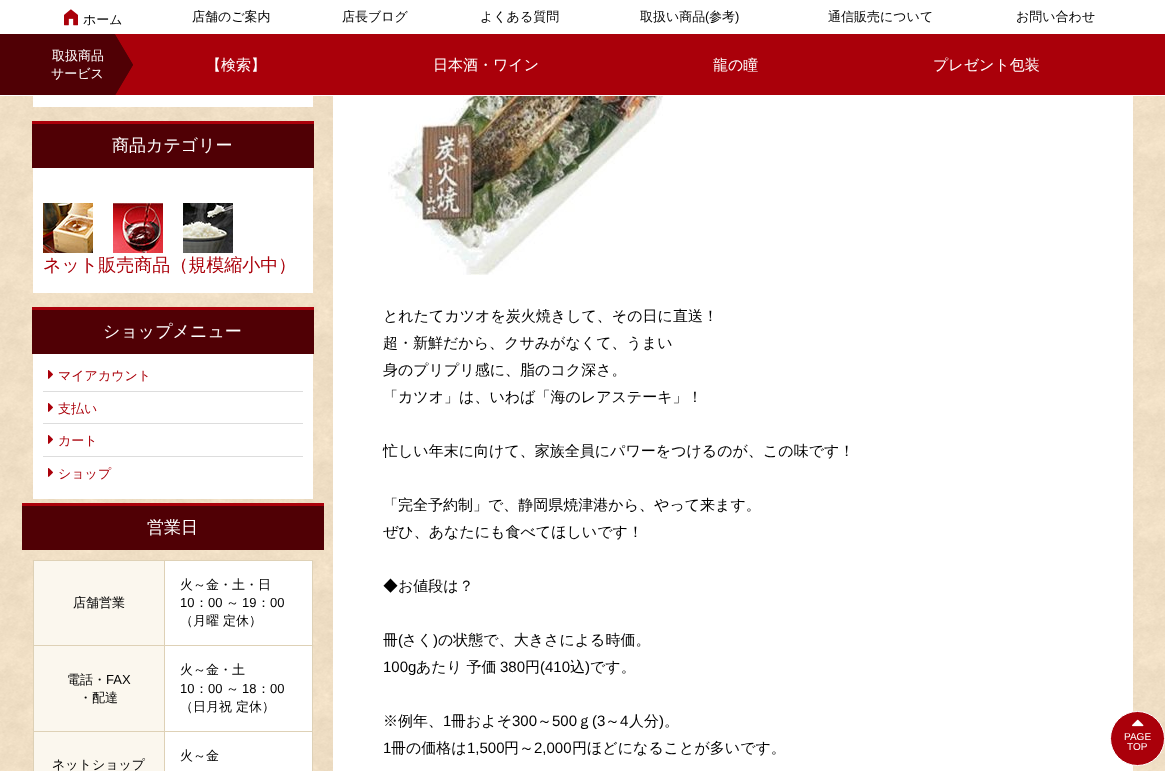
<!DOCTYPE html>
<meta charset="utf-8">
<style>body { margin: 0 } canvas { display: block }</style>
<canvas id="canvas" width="1165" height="771"></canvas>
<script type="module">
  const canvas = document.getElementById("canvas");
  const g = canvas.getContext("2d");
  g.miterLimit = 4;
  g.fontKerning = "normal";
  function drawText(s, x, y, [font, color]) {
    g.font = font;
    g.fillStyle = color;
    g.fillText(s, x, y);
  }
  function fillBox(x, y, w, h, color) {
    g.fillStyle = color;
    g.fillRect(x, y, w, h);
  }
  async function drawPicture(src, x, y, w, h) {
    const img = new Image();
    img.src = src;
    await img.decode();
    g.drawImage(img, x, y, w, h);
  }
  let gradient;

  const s1 = ["500 13px WenQuanYi Zen Hei", "#000000"];
  const s2 = ["13px Liberation Sans", "#000000"];
  const s3 = ["500 13px WenQuanYi Zen Hei", "#FFFFFF"];
  const s4 = ["500 15px WenQuanYi Zen Hei", "#FFFFFF"];
  const s5 = ["500 17px WenQuanYi Zen Hei", "#FFFFFF"];
  const s6 = ["500 18px WenQuanYi Zen Hei", "#AA000A"];
  const s7 = ["500 13px WenQuanYi Zen Hei", "#AA000A"];
  const s8 = ["500 15px WenQuanYi Zen Hei", "#000000"];
  const s9 = ["15px Liberation Sans", "#000000"];
  const s10 = ["10px Liberation Sans", "#FFFFFF"];

  fillBox(0, 0, 1165, 771, "#FFFFFF");
  await drawPicture("pic1.png", 0, 96, 1165, 675);
  await drawPicture("pic2.png", 64, 9, 14, 17);
  drawText("ホーム", 83, 24, s1);
  drawText("店舗のご案内", 192, 21, s1);
  drawText("店長ブログ", 342, 21, s1);
  drawText("よくある質問", 480, 21, s1);
  drawText("取扱い商品", 640, 21, s1);
  drawText("(", 705, 21, s2);
  drawText("参考", 709, 21, s1);
  drawText(")", 735, 21, s2);
  drawText("通信販売について", 828, 21, s1);
  drawText("お問い合わせ", 1016, 21, s1);
  gradient = g.createLinearGradient(0, 65, 1165, 64);
  gradient.addColorStop(0, "#500005");
  gradient.addColorStop(0.5, "#500005");
  gradient.addColorStop(0.51, "#AA000A");
  gradient.addColorStop(1, "#AA000A");
  g.fillStyle = gradient;
  g.fillRect(0, 34, 1165, 61);
  fillBox(114, 34, 480, 61, "#AA000A");
  await drawPicture("pic3.png", 33, 34, 100, 61);
  drawText("取扱商品", 52, 60, s3);
  drawText("サービス", 51, 78, s3);
  drawText("【検索】", 206, 70, s4);
  drawText("日本酒・ワイン", 433, 70, s4);
  drawText("龍の瞳", 713, 70, s4);
  drawText("プレゼント包装", 933, 70, s4);
  fillBox(33, 96, 280, 11, "#FFFFFF");
  fillBox(33, 168, 280, 125, "#FFFFFF");
  fillBox(32, 124, 282, 44, "#500005");
  fillBox(32, 121, 282, 3, "#AA000A");
  drawText("商品カテゴリー", 112, 151, s5);
  await drawPicture("pic4.png", 43, 203, 50, 50);
  await drawPicture("pic5.png", 113, 203, 50, 50);
  await drawPicture("pic6.png", 183, 203, 50, 50);
  drawText("ネット販売商品（規模縮小中）", 43, 271, s6);
  fillBox(33, 354, 280, 145, "#FFFFFF");
  fillBox(32, 310, 282, 44, "#500005");
  fillBox(32, 307, 282, 3, "#AA000A");
  drawText("ショップメニュー", 103, 337, s5);
  fillBox(43, 391, 260, 1, "#DDDDDD");
  await drawPicture("pic7.png", 48, 370, 5, 9);
  drawText("マイアカウント", 58, 380, s7);
  fillBox(43, 423, 260, 1, "#DDDDDD");
  await drawPicture("pic7.png", 48, 403, 5, 9);
  drawText("支払い", 58, 413, s7);
  fillBox(43, 456, 260, 1, "#DDDDDD");
  await drawPicture("pic7.png", 48, 435, 5, 9);
  drawText("カート", 58, 445, s7);
  await drawPicture("pic7.png", 48, 468, 5, 9);
  drawText("ショップ", 58, 478, s7);
  fillBox(22, 506, 302, 44, "#500005");
  fillBox(22, 503, 302, 3, "#AA000A");
  drawText("営業日", 147, 533, s5);
  fillBox(165, 561, 147, 210, "#FFFFFF");
  fillBox(34, 561, 130, 84, "#FBF7EE");
  fillBox(164, 560, 149, 1, "#DED1B6");
  fillBox(164, 645, 149, 1, "#DED1B6");
  fillBox(164, 731, 149, 1, "#DED1B6");
  fillBox(164, 731, 1, 40, "#DED1B6");
  fillBox(33, 731, 132, 1, "#DED1B6");
  fillBox(164, 645, 1, 87, "#DED1B6");
  fillBox(33, 645, 132, 1, "#DED1B6");
  fillBox(164, 560, 1, 86, "#DED1B6");
  fillBox(33, 560, 132, 1, "#DED1B6");
  fillBox(33, 731, 1, 40, "#DED1B6");
  fillBox(33, 645, 1, 87, "#DED1B6");
  fillBox(33, 560, 1, 86, "#DED1B6");
  drawText("店舗営業", 73, 607, s1);
  fillBox(312, 731, 1, 40, "#DED1B6");
  fillBox(312, 645, 1, 87, "#DED1B6");
  fillBox(312, 560, 1, 86, "#DED1B6");
  drawText("火～金・土・日", 180, 589, s1);
  drawText("10", 180, 607, s2);
  drawText("：", 195, 607, s1);
  drawText("00", 208, 607, s2);
  drawText("～", 226, 607, s1);
  drawText("19", 242, 607, s2);
  drawText("：", 257, 607, s1);
  drawText("00", 270, 607, s2);
  drawText("（月曜 定休）", 180, 625, s1);
  fillBox(34, 646, 130, 85, "#FBF7EE");
  drawText("電話・", 67, 684, s1);
  drawText("FAX", 106, 684, s2);
  drawText("・配達", 79, 702, s1);
  drawText("火～金・土", 180, 674, s1);
  drawText("10", 180, 693, s2);
  drawText("：", 195, 693, s1);
  drawText("00", 208, 693, s2);
  drawText("～", 226, 693, s1);
  drawText("18", 242, 693, s2);
  drawText("：", 257, 693, s1);
  drawText("00", 270, 693, s2);
  drawText("（日月祝 定休）", 180, 711, s1);
  drawText("火～金", 180, 760, s1);
  fillBox(34, 732, 130, 39, "#FBF7EE");
  drawText("ネットショップ", 52, 769, s1);
  fillBox(333, 96, 800, 675, "#FFFFFF");
  await drawPicture("pic8.png", 388, 96, 283, 179);
  drawText("とれたてカツオを炭火焼きして、その日に直送！", 383, 321, s8);
  drawText("超・新鮮だから、クサみがなくて、うまい", 383, 348, s8);
  drawText("身のプリプリ感に、脂のコク深さ。", 383, 375, s8);
  drawText("「カツオ」は、いわば「海のレアステーキ」！", 383, 402, s8);
  drawText("忙しい年末に向けて、家族全員にパワーをつけるのが、この味です！", 383, 456, s8);
  drawText("「完全予約制」で、静岡県焼津港から、やって来ます。", 383, 510, s8);
  drawText("ぜひ、あなたにも食べてほしいです！", 383, 537, s8);
  drawText("◆お値段は？", 383, 591, s8);
  drawText("冊", 383, 645, s8);
  drawText("(", 398, 645, s9);
  drawText("さく", 402, 645, s8);
  drawText(")", 433, 645, s9);
  drawText("の状態で、大きさによる時価。", 438, 645, s8);
  drawText("100g", 383, 672, s9);
  drawText("あたり 予価", 416, 672, s8);
  drawText("380", 500, 672, s9);
  drawText("円", 525, 672, s8);
  drawText("(410", 540, 672, s9);
  drawText("込", 570, 672, s8);
  drawText(")", 585, 672, s9);
  drawText("です。", 590, 672, s8);
  drawText("※例年、", 383, 726, s8);
  drawText("1", 443, 726, s9);
  drawText("冊およそ", 451, 726, s8);
  drawText("300", 512, 726, s9);
  drawText("～", 537, 726, s8);
  drawText("500", 552, 726, s9);
  drawText("ｇ", 577, 726, s8);
  drawText("(3", 592, 726, s9);
  drawText("～", 605, 726, s8);
  drawText("4", 620, 726, s9);
  drawText("人分", 629, 726, s8);
  drawText(")", 659, 726, s9);
  drawText("。", 664, 726, s8);
  drawText("1", 383, 753, s9);
  drawText("冊の価格は", 391, 753, s8);
  drawText("1,500", 467, 753, s9);
  drawText("円～", 504, 753, s8);
  drawText("2,000", 534, 753, s9);
  drawText("円ほどになることが多いです。", 572, 753, s8);
  g.fillStyle = "#AA000A";
  g.beginPath();
  g.arc(1137.5, 738.5, 27, 0, Math.PI * 2);
  g.fill();
  g.strokeStyle = "#FFFFFF";
  g.stroke();
  await drawPicture("pic9.png", 1132, 719, 12, 8);
  drawText("PAGE", 1124, 740, s10);
  drawText("TOP", 1127, 750, s10);
</script>
